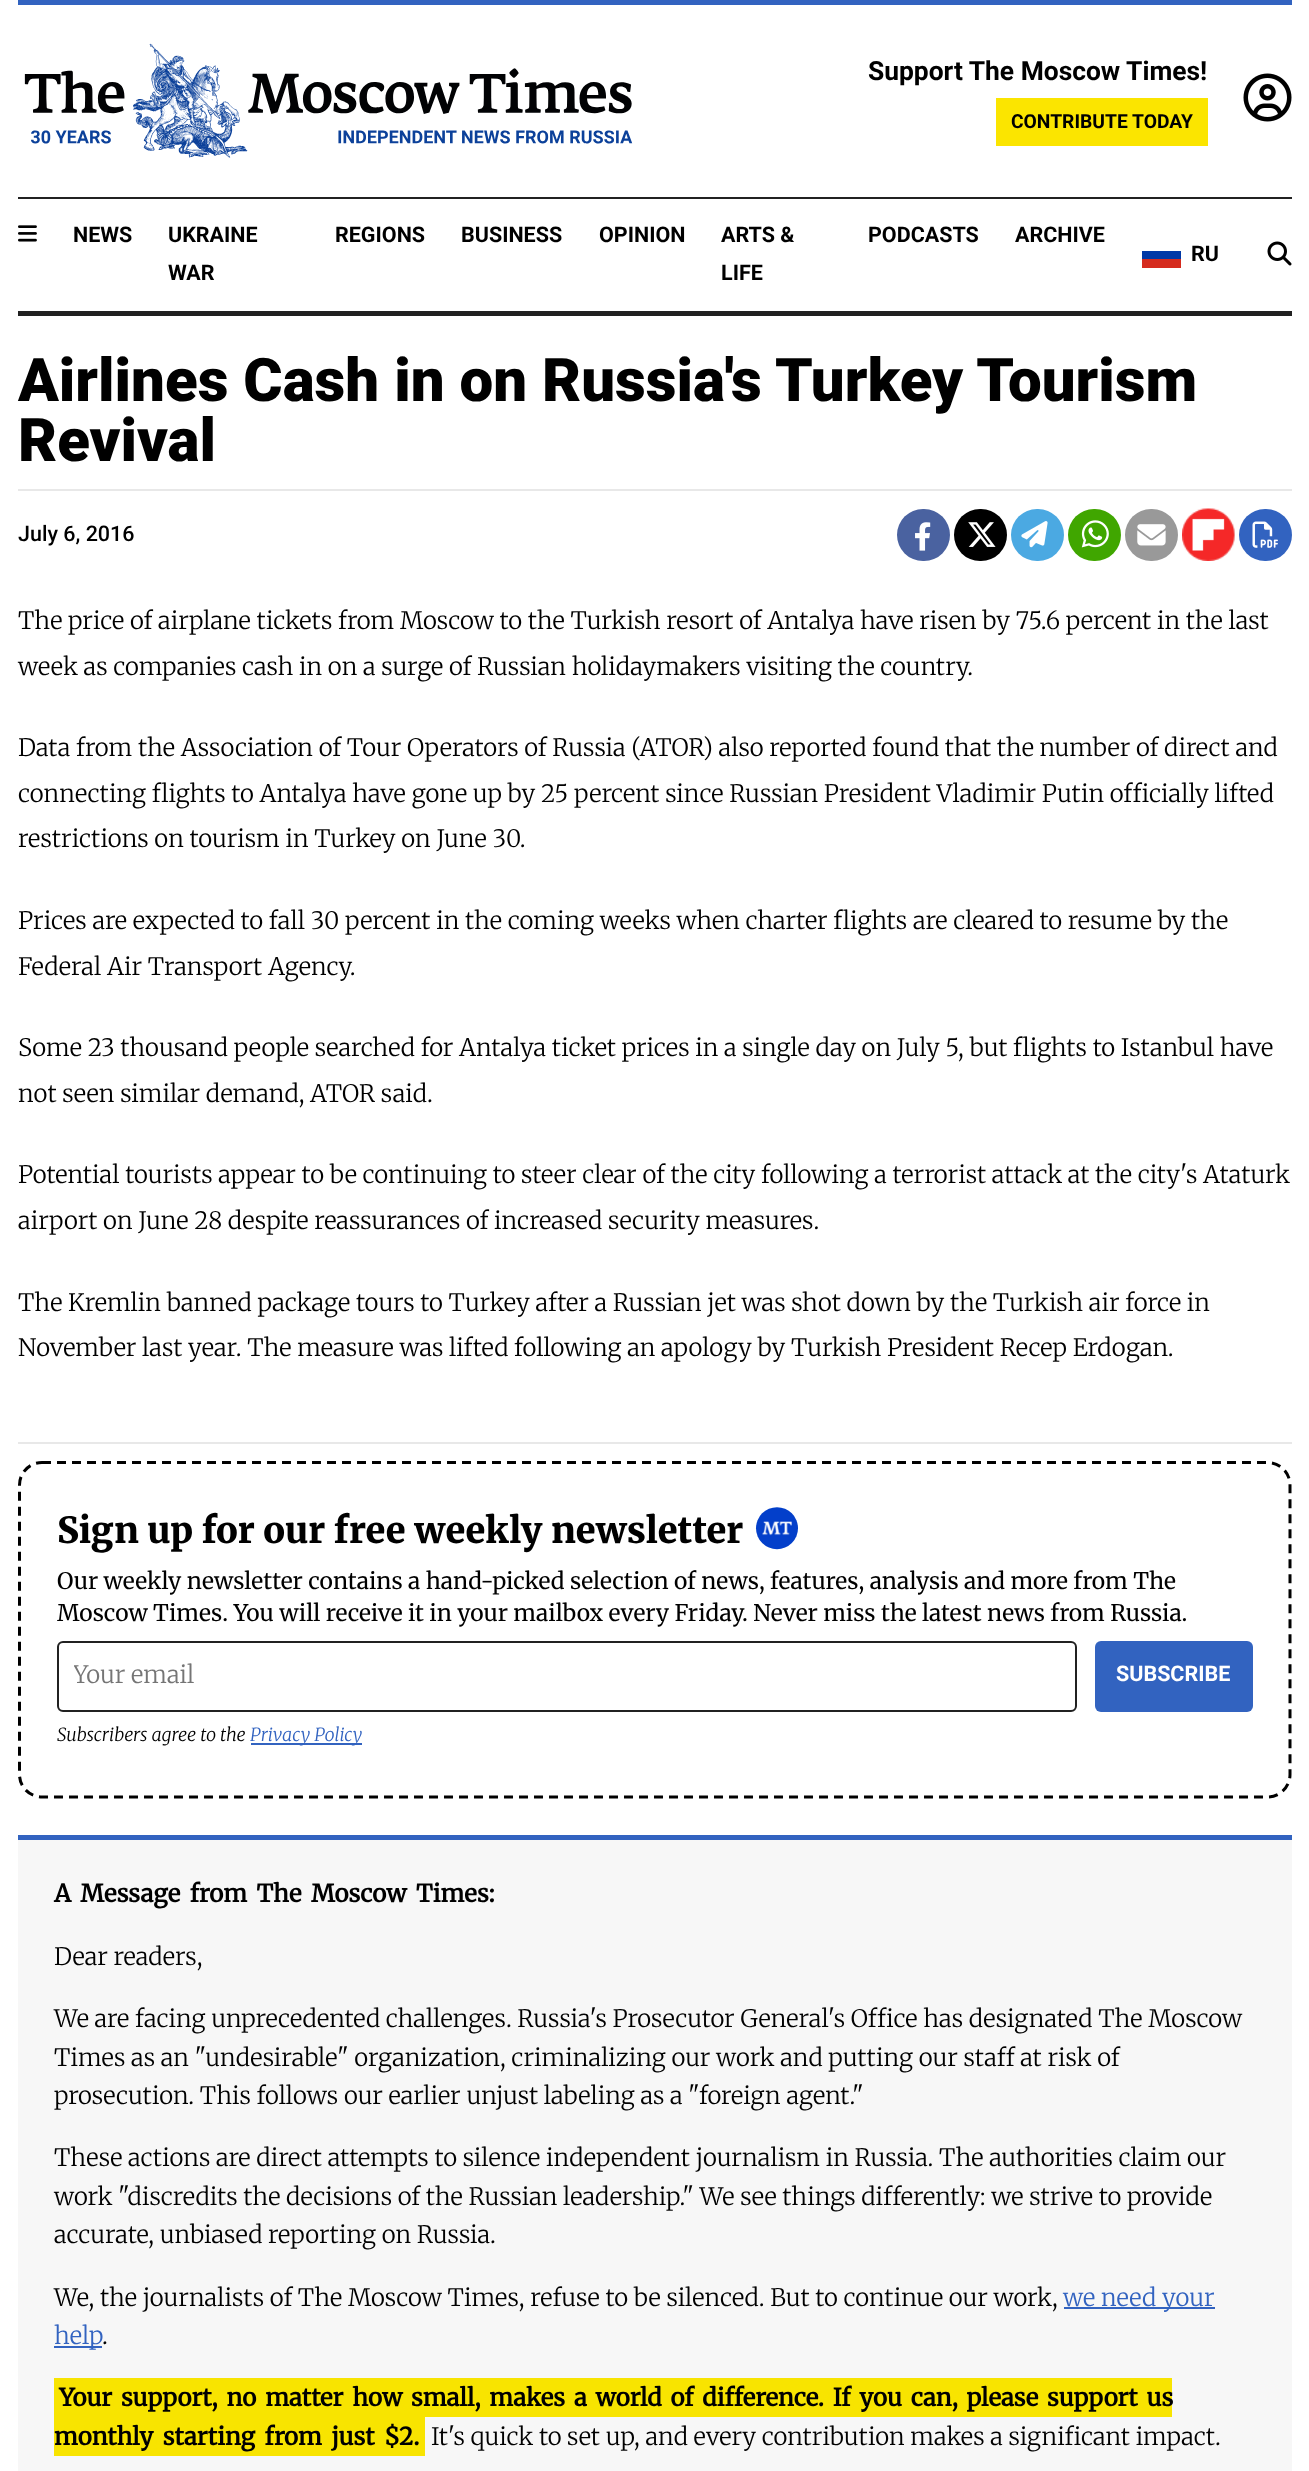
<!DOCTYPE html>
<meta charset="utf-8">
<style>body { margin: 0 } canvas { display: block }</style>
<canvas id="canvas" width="1309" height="2471"></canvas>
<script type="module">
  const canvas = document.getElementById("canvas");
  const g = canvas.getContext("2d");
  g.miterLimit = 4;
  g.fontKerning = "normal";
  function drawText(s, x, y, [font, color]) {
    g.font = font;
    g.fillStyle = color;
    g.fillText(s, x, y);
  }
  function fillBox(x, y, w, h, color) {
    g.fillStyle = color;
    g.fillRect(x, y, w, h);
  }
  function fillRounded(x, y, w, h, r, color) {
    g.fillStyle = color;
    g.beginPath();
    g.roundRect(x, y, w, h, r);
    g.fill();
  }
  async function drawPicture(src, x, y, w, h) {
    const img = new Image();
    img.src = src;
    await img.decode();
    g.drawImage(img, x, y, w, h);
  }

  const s1 = ["bold 26.4px Roboto", "#000000"];
  const s2 = ["bold 19.25px Roboto", "#000000"];
  const s3 = ["bold 21.5px Roboto", "#000000"];
  const s4 = ["900 60px Roboto", "#000000"];
  const s5 = ["500 21.5px Roboto", "#000000"];
  const s6 = ["300 24px Merriweather", "#000000"];
  const s7 = ["900 36px Merriweather", "#000000"];
  const s8 = ["22.8px Merriweather", "#000000"];
  const s9 = ["300 24px Merriweather", "#757575"];
  const s10 = ["bold 21.5px Roboto", "#FFFFFF"];
  const s11 = ["italic 300 18px Merriweather", "#000000"];
  const s12 = ["italic 300 18px Merriweather", "#3263C0"];
  const s13 = ["bold 24px Merriweather", "#000000"];
  const s14 = ["300 24px Merriweather", "#3263C0"];

  fillBox(0, 0, 1309, 2471, "#FFFFFF");
  fillBox(18, 0, 1274, 5, "#3263C0");
  await drawPicture("pic1.png", 24, 43, 609, 115);
  drawText("Support The Moscow Times!", 868, 80, s1);
  fillBox(996, 98, 212, 48, "#FBE500");
  drawText("CONTRIBUTE TODAY", 1011, 128, s2);
  await drawPicture("pic2.png", 1243, 73, 49, 49);
  fillBox(18, 197, 1274, 2, "#212121");
  fillBox(18, 311, 1274, 5, "#212121");
  await drawPicture("pic3.png", 18, 225, 19, 17);
  drawText("NEWS", 73, 242, s3);
  drawText("UKRAINE", 168, 242, s3);
  drawText("WAR", 168, 280, s3);
  drawText("REGIONS", 335, 242, s3);
  drawText("BUSINESS", 461, 242, s3);
  drawText("OPINION", 599, 242, s3);
  drawText("ARTS &", 721, 242, s3);
  drawText("LIFE", 721, 280, s3);
  drawText("PODCASTS", 868, 242, s3);
  drawText("ARCHIVE", 1015, 242, s3);
  fillBox(1142, 259, 39, 9, "#D52B1E");
  fillBox(1142, 251, 39, 8, "#0039A6");
  drawText("RU", 1191, 261, s3);
  await drawPicture("pic4.png", 1267, 241, 25, 25);
  drawText("Airlines Cash in on Russia's Turkey Tourism", 18, 401, s4);
  drawText("Revival", 18, 461, s4);
  fillBox(18, 489, 1274, 2, "#E8E8E8");
  drawText("July 6, 2016", 18, 541, s5);
  fillRounded(897, 509, 53, 52, 26, "#4A62A0");
  await drawPicture("pic5.png", 915, 522, 16, 29);
  fillRounded(954, 509, 53, 52, 26, "#000000");
  await drawPicture("pic6.png", 968, 522, 28, 25);
  fillRounded(1011, 509, 53, 52, 26, "#4BA9E2");
  await drawPicture("pic7.png", 1021, 521, 27, 27);
  fillRounded(1068, 509, 53, 52, 26, "#40A600");
  await drawPicture("pic8.png", 1081, 520, 28, 28);
  fillRounded(1125, 509, 53, 52, 26, "#999999");
  await drawPicture("pic9.png", 1137, 524, 29, 22);
  fillRounded(1182, 509, 53, 52, 26, "#E8E8E8");
  await drawPicture("pic10.png", 1182, 508, 53, 53);
  fillRounded(1239, 509, 53, 52, 26, "#3263C0");
  await drawPicture("pic11.png", 1252, 521, 26, 27);
  drawText("The price of airplane tickets from Moscow to the Turkish resort of Antalya have risen by 75.6 percent in the last", 18, 629, s6);
  drawText("week as companies cash in on a surge of Russian holidaymakers visiting the country.", 18, 675, s6);
  drawText("Data from the Association of Tour Operators of Russia (ATOR) also reported found that the number of direct and", 18, 756, s6);
  drawText("connecting flights to Antalya have gone up by 25 percent since Russian President Vladimir Putin officially lifted", 18, 802, s6);
  drawText("restrictions on tourism in Turkey on June 30.", 18, 847, s6);
  drawText("Prices are expected to fall 30 percent in the coming weeks when charter flights are cleared to resume by the", 18, 929, s6);
  drawText("Federal Air Transport Agency.", 18, 975, s6);
  drawText("Some 23 thousand people searched for Antalya ticket prices in a single day on July 5, but flights to Istanbul have", 18, 1056, s6);
  drawText("not seen similar demand, ATOR said.", 18, 1102, s6);
  drawText("Potential tourists appear to be continuing to steer clear of the city following a terrorist attack at the city's Ataturk", 18, 1183, s6);
  drawText("airport on June 28 despite reassurances of increased security measures.", 18, 1229, s6);
  drawText("The Kremlin banned package tours to Turkey after a Russian jet was shot down by the Turkish air force in", 18, 1311, s6);
  drawText("November last year. The measure was lifted following an apology by Turkish President Recep Erdogan.", 18, 1356, s6);
  fillBox(18, 1442, 1274, 2, "#E8E8E8");
  g.beginPath();
  g.moveTo(42, 1462.5);
  g.lineTo(1267.5, 1462.5);
  g.bezierCurveTo(1280, 1462.5, 1290, 1472.5, 1290, 1485);
  g.lineTo(1290, 1774.5);
  g.bezierCurveTo(1290, 1787, 1280, 1797, 1267.5, 1797);
  g.lineTo(42, 1797);
  g.bezierCurveTo(29.5, 1797, 19.5, 1787, 19.5, 1774.5);
  g.lineTo(19.5, 1485);
  g.bezierCurveTo(19.5, 1472.5, 29.5, 1462.5, 42, 1462.5);
  g.closePath();
  g.strokeStyle = "#000000";
  g.lineWidth = 3;
  g.setLineDash([9, 6]);
  g.stroke();
  drawText("Sign up for our free weekly newsletter", 57, 1543, s7);
  await drawPicture("pic12.png", 755, 1507, 43, 43);
  drawText("Our weekly newsletter contains a hand-picked selection of news, features, analysis and more from The", 57, 1589, s8);
  drawText("Moscow Times. You will receive it in your mailbox every Friday. Never miss the latest news from Russia.", 57, 1621, s8);
  g.beginPath();
  g.roundRect(58, 1642, 1018, 69, 5);
  g.strokeStyle = "#212121";
  g.lineWidth = 2;
  g.setLineDash([]);
  g.stroke();
  g.save();
  g.beginPath();
  g.rect(74, 1659, 987, 30);
  g.clip();
  drawText("Your email", 73, 1683, s9);
  g.restore();
  fillRounded(1095, 1641, 158, 71, 6, "#3263C0");
  drawText("SUBSCRIBE", 1116, 1681, s10);
  drawText("Subscribers agree to the", 57, 1741, s11);
  fillBox(251, 1743, 111, 2, "#3263C0");
  drawText("Privacy Policy", 250, 1741, s12);
  fillBox(18, 1840, 1274, 631, "#F7F7F7");
  fillBox(18, 1835, 1274, 5, "#3263C0");
  g.wordSpacing = "3.75px";
  drawText("A Message from The Moscow Times:", 54, 1902, s13);
  g.wordSpacing = "0px";
  drawText("Dear readers,", 54, 1965, s6);
  drawText("We are facing unprecedented challenges. Russia's Prosecutor General's Office has designated The Moscow", 54, 2027, s6);
  drawText("Times as an \"undesirable\" organization, criminalizing our work and putting our staff at risk of", 54, 2066, s6);
  drawText("prosecution. This follows our earlier unjust labeling as a \"foreign agent.\"", 54, 2104, s6);
  drawText("These actions are direct attempts to silence independent journalism in Russia. The authorities claim our", 54, 2166, s6);
  drawText("work \"discredits the decisions of the Russian leadership.\" We see things differently: we strive to provide", 54, 2205, s6);
  drawText("accurate, unbiased reporting on Russia.", 54, 2243, s6);
  drawText("We, the journalists of The Moscow Times, refuse to be silenced. But to continue our work,", 54, 2306, s6);
  fillBox(1064, 2307, 151, 2, "#3263C0");
  drawText("we need your", 1063, 2306, s14);
  fillBox(54, 2346, 48, 2, "#3263C0");
  drawText("help", 54, 2344, s14);
  drawText(".", 102, 2344, s6);
  fillBox(54, 2378, 1118, 39, "#F8E400");
  g.wordSpacing = "3.1px";
  drawText("Your support, no matter how small, makes a world of difference. If you can, please support us", 59, 2406, s13);
  fillBox(54, 2417, 371, 39, "#F8E400");
  g.wordSpacing = "3.75px";
  drawText("monthly starting from just", 54, 2445, s13);
  g.wordSpacing = "0px";
  drawText("$", 384, 2445, s13);
  drawText("2.", 399, 2445, s13);
  drawText("It's quick to set up, and every contribution makes a significant impact.", 431, 2445, s6);
</script>
